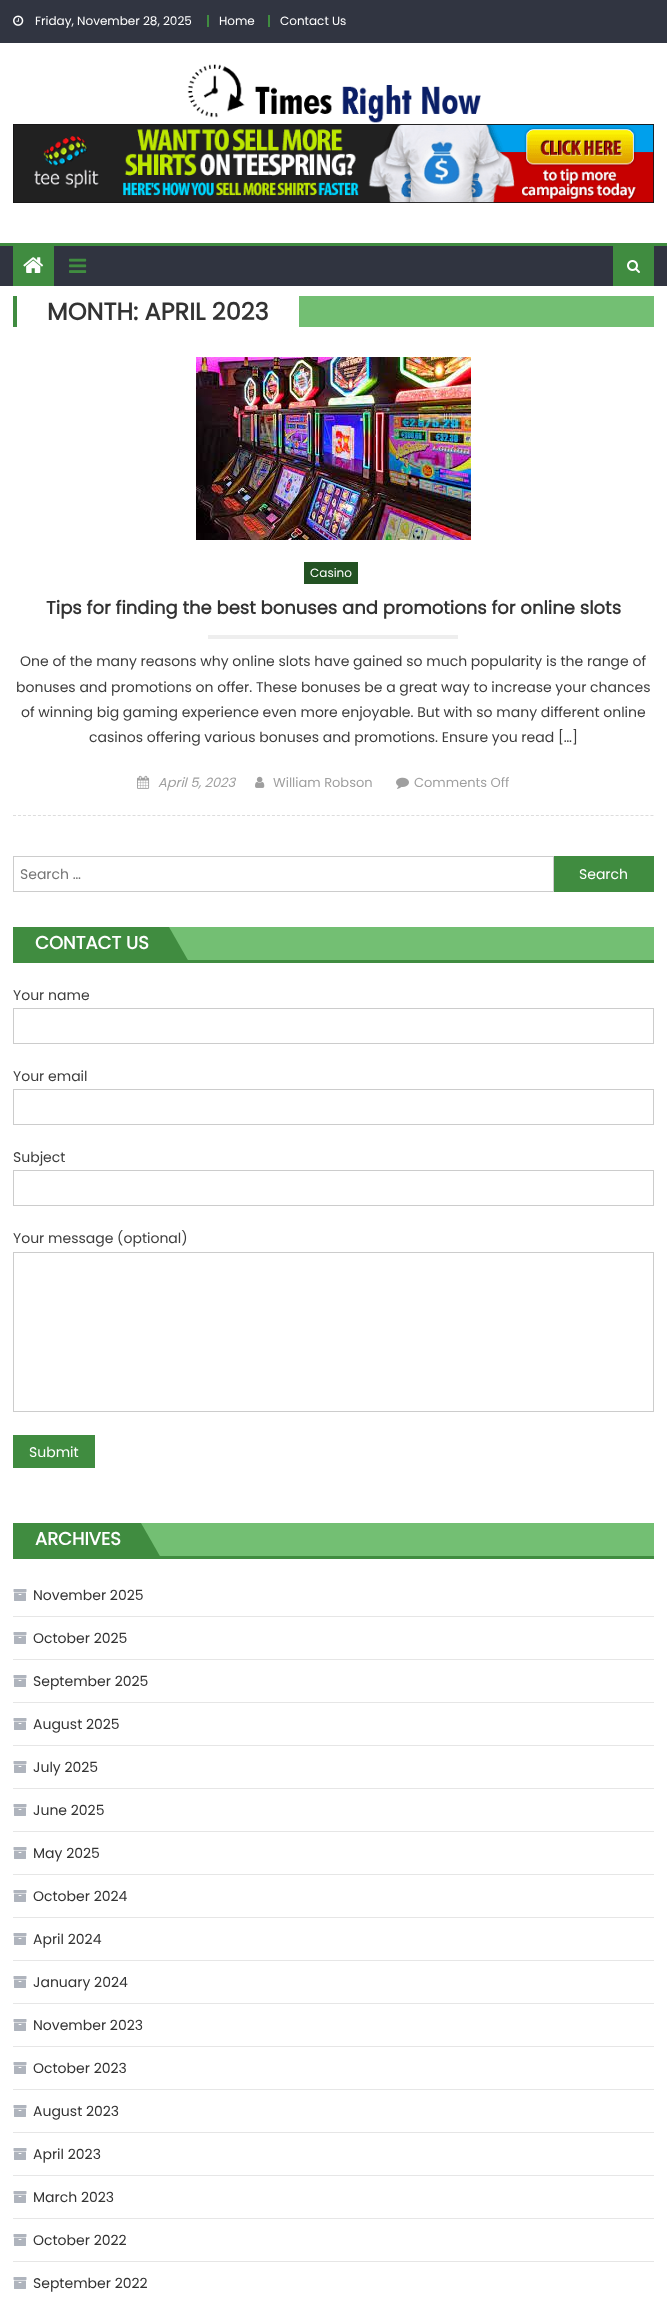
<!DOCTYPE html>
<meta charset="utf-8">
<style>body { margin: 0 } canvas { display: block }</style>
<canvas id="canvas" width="667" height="2300"></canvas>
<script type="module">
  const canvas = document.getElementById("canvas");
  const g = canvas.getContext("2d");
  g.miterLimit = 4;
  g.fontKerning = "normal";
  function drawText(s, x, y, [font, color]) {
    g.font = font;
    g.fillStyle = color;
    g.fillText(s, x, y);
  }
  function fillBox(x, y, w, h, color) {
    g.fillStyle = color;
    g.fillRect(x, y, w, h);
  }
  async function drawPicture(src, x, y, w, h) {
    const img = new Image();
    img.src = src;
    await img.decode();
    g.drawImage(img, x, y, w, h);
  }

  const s1 = ["12px Poppins", "#FFFFFF"];
  const s2 = ["bold 24px Poppins", "#333333"];
  const s3 = ["bold 18px Poppins", "#333333"];
  const s4 = ["14px Poppins", "#3D3D3D"];
  const s5 = ["italic 13px Poppins", "#9F9F9F"];
  const s6 = ["13px Poppins", "#9F9F9F"];
  const s7 = ["14px Poppins", "#757575"];
  const s8 = ["14px Poppins", "#FFFFFF"];
  const s9 = ["bold 18px Poppins", "#FFFFFF"];
  const s10 = ["14px Poppins", "#333333"];

  fillBox(0, 0, 667, 2300, "#FFFFFF");
  fillBox(0, 0, 667, 43, "#313541");
  await drawPicture("pic1.png", 13, 15, 11, 11);
  drawText("Friday, November 28, 2025", 35, 25, s1);
  fillBox(207, 15, 2, 12, "#408C40");
  drawText("Home", 219, 25, s1);
  fillBox(268, 15, 2, 12, "#408C40");
  drawText("Contact Us", 280, 25, s1);
  await drawPicture("pic2.png", 187, 64, 294, 59);
  await drawPicture("pic3.png", 13, 124, 641, 79);
  fillBox(0, 246, 667, 40, "#303440");
  fillBox(0, 243, 667, 3, "#408C40");
  fillBox(13, 246, 41, 40, "#408C40");
  await drawPicture("pic4.png", 23, 257, 21, 16);
  await drawPicture("pic5.png", 69, 258, 18, 15);
  fillBox(613, 246, 41, 40, "#408C40");
  await drawPicture("pic6.png", 627, 260, 13, 13);
  fillBox(299, 296, 355, 31, "#73BF73");
  fillBox(13, 296, 4, 31, "#408C40");
  drawText("MONTH: APRIL 2023", 47, 320, s2);
  g.beginPath();
  g.moveTo(13, 815.5);
  g.lineTo(654, 815.5);
  g.strokeStyle = "#DDDDDD";
  g.setLineDash([3, 1.98]);
  g.stroke();
  await drawPicture("pic7.png", 196, 357, 275, 183);
  fillBox(304, 562, 54, 22, "#235223");
  drawText("Casino", 310, 577, s1);
  drawText("Tips for finding the best bonuses and promotions for online slots", 46, 614, s3);
  fillBox(208, 635, 250, 4, "#EEEEEE");
  drawText("One of the many reasons why online slots have gained so much popularity is the range of", 20, 666, s4);
  drawText("bonuses and promotions on offer. These bonuses be a great way to increase your chances", 16, 692, s4);
  drawText("of winning big gaming experience even more enjoyable. But with so many different online", 21, 717, s4);
  drawText("casinos offering various bonuses and promotions. Ensure you read […]", 89, 742, s4);
  await drawPicture("pic8.png", 137, 775, 13, 14);
  drawText("April 5, 2023", 158, 787, s5);
  await drawPicture("pic9.png", 255, 776, 10, 12);
  drawText("William Robson", 273, 787, s6);
  await drawPicture("pic10.png", 396, 777, 13, 12);
  drawText("Comments Off", 414, 787, s6);
  g.strokeStyle = "#CCCCCC";
  g.setLineDash([]);
  g.strokeRect(13.5, 856.5, 540, 35);
  drawText("Search …", 20, 879, s7);
  fillBox(554, 856, 100, 36, "#408C40");
  drawText("Search", 579, 879, s8);
  fillBox(169, 927, 485, 33, "#73BF73");
  fillBox(13, 960, 641, 3, "#408C40");
  fillBox(13, 927, 2, 36, "#408C40");
  fillBox(15, 927, 154, 33, "#408C40");
  drawText("CONTACT US", 35, 949, s9);
  g.fillStyle = "#408C40";
  g.beginPath();
  g.moveTo(189, 962);
  g.lineTo(169, 962);
  g.lineTo(169, 927);
  g.closePath();
  g.fill();
  drawText("Your name", 13, 1000, s4);
  g.strokeRect(13.5, 1008.5, 640, 35);
  drawText("Your email", 13, 1081, s4);
  g.strokeRect(13.5, 1089.5, 640, 35);
  drawText("Subject", 13, 1162, s4);
  g.strokeRect(13.5, 1170.5, 640, 35);
  drawText("Your message (optional)", 13, 1243, s4);
  g.strokeRect(13.5, 1252.5, 640, 159);
  fillBox(13, 1435, 82, 33, "#408C40");
  drawText("Submit", 29, 1457, s8);
  fillBox(141, 1523, 513, 33, "#73BF73");
  fillBox(13, 1556, 641, 3, "#408C40");
  fillBox(13, 1523, 2, 36, "#408C40");
  fillBox(15, 1523, 126, 33, "#408C40");
  drawText("ARCHIVES", 35, 1545, s9);
  g.fillStyle = "#408C40";
  g.beginPath();
  g.moveTo(161, 1558);
  g.lineTo(141, 1558);
  g.lineTo(141, 1523);
  g.closePath();
  g.fill();
  fillBox(13, 1616, 641, 1, "#E6E6E6");
  await drawPicture("pic11.png", 13, 1589, 14, 12);
  drawText("November 2025", 33, 1600, s10);
  fillBox(13, 1659, 641, 1, "#E6E6E6");
  await drawPicture("pic11.png", 13, 1632, 14, 12);
  drawText("October 2025", 33, 1643, s10);
  fillBox(13, 1702, 641, 1, "#E6E6E6");
  await drawPicture("pic11.png", 13, 1675, 14, 12);
  drawText("September 2025", 33, 1686, s10);
  fillBox(13, 1745, 641, 1, "#E6E6E6");
  await drawPicture("pic11.png", 13, 1718, 14, 12);
  drawText("August 2025", 33, 1729, s10);
  fillBox(13, 1788, 641, 1, "#E6E6E6");
  await drawPicture("pic11.png", 13, 1761, 14, 12);
  drawText("July 2025", 33, 1772, s10);
  fillBox(13, 1831, 641, 1, "#E6E6E6");
  await drawPicture("pic11.png", 13, 1804, 14, 12);
  drawText("June 2025", 33, 1815, s10);
  fillBox(13, 1874, 641, 1, "#E6E6E6");
  await drawPicture("pic11.png", 13, 1847, 14, 12);
  drawText("May 2025", 33, 1858, s10);
  fillBox(13, 1917, 641, 1, "#E6E6E6");
  await drawPicture("pic11.png", 13, 1890, 14, 12);
  drawText("October 2024", 33, 1901, s10);
  fillBox(13, 1960, 641, 1, "#E6E6E6");
  await drawPicture("pic11.png", 13, 1933, 14, 12);
  drawText("April 2024", 33, 1944, s10);
  fillBox(13, 2003, 641, 1, "#E6E6E6");
  await drawPicture("pic11.png", 13, 1976, 14, 12);
  drawText("January 2024", 33, 1987, s10);
  fillBox(13, 2046, 641, 1, "#E6E6E6");
  await drawPicture("pic11.png", 13, 2019, 14, 12);
  drawText("November 2023", 33, 2030, s10);
  fillBox(13, 2089, 641, 1, "#E6E6E6");
  await drawPicture("pic11.png", 13, 2062, 14, 12);
  drawText("October 2023", 33, 2073, s10);
  fillBox(13, 2132, 641, 1, "#E6E6E6");
  await drawPicture("pic11.png", 13, 2105, 14, 12);
  drawText("August 2023", 33, 2116, s10);
  fillBox(13, 2175, 641, 1, "#E6E6E6");
  await drawPicture("pic11.png", 13, 2148, 14, 12);
  drawText("April 2023", 33, 2159, s10);
  fillBox(13, 2218, 641, 1, "#E6E6E6");
  await drawPicture("pic11.png", 13, 2191, 14, 12);
  drawText("March 2023", 33, 2202, s10);
  fillBox(13, 2261, 641, 1, "#E6E6E6");
  await drawPicture("pic11.png", 13, 2234, 14, 12);
  drawText("October 2022", 33, 2245, s10);
  await drawPicture("pic11.png", 13, 2277, 14, 12);
  drawText("September 2022", 33, 2288, s10);
</script>
